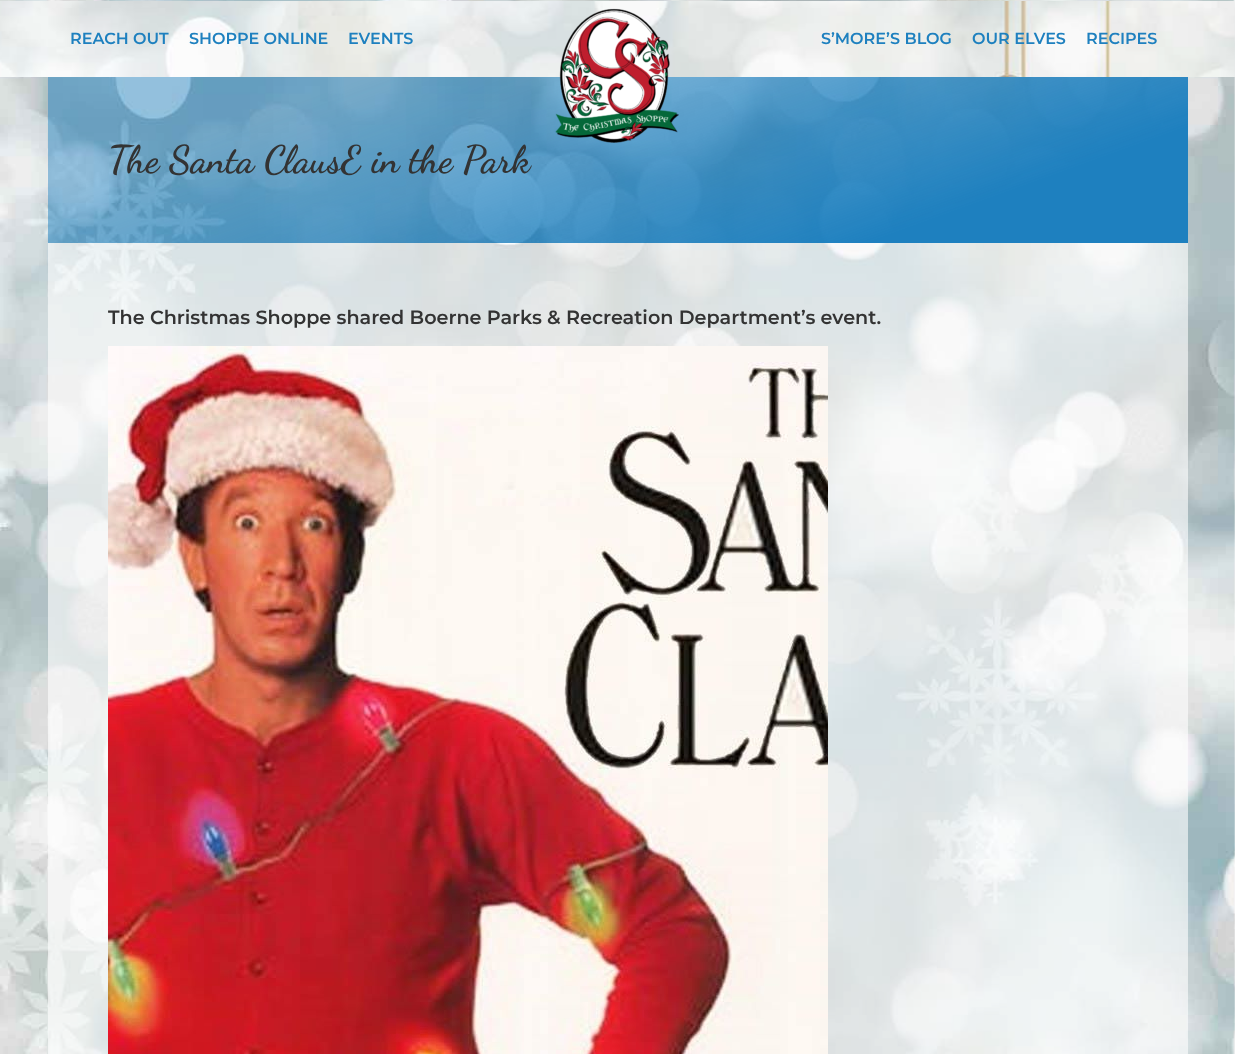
<!DOCTYPE html>
<meta charset="utf-8">
<style>body { margin: 0 } canvas { display: block }</style>
<canvas id="canvas" width="1235" height="1054"></canvas>
<script type="module">
  const canvas = document.getElementById("canvas");
  const g = canvas.getContext("2d");
  g.miterLimit = 4;
  g.fontKerning = "normal";
  function drawText(s, x, y, [font, color]) {
    g.font = font;
    g.fillStyle = color;
    g.fillText(s, x, y);
  }
  function fillBox(x, y, w, h, color) {
    g.fillStyle = color;
    g.fillRect(x, y, w, h);
  }
  async function drawPicture(src, x, y, w, h) {
    const img = new Image();
    img.src = src;
    await img.decode();
    g.drawImage(img, x, y, w, h);
  }

  const s1 = ["600 16px Montserrat", "#1E80BF"];
  const s2 = ["bold 38.4px Dancing Script", "#333333"];
  const s3 = ["600 19.2px Montserrat", "#333333"];

  fillBox(0, 0, 1235, 1054, "#FFFFFF");
  await drawPicture("pic1.png", 0, 0, 1235, 1054);
  await drawPicture("pic2.png", 0, 1, 1235, 76);
  fillBox(0, 1, 1235, 76, "rgba(255, 255, 255, 0.5)");
  drawText("REACH OUT", 70, 44, s1);
  drawText("SHOPPE ONLINE", 189, 44, s1);
  drawText("EVENTS", 348, 44, s1);
  await drawPicture("pic3.png", 555, 8, 124, 135);
  drawText("S’MORE’S BLOG", 821, 44, s1);
  drawText("OUR ELVES", 972, 44, s1);
  drawText("RECIPES", 1086, 44, s1);
  drawText("The Santa ClausE in the Park", 108, 172, s2);
  fillBox(48, 243, 1140, 811, "rgba(255, 255, 255, 0.6)");
  drawText("The Christmas Shoppe shared Boerne Parks & Recreation Department’s event.", 108, 324, s3);
  await drawPicture("pic4.png", 108, 346, 720, 708);
</script>
